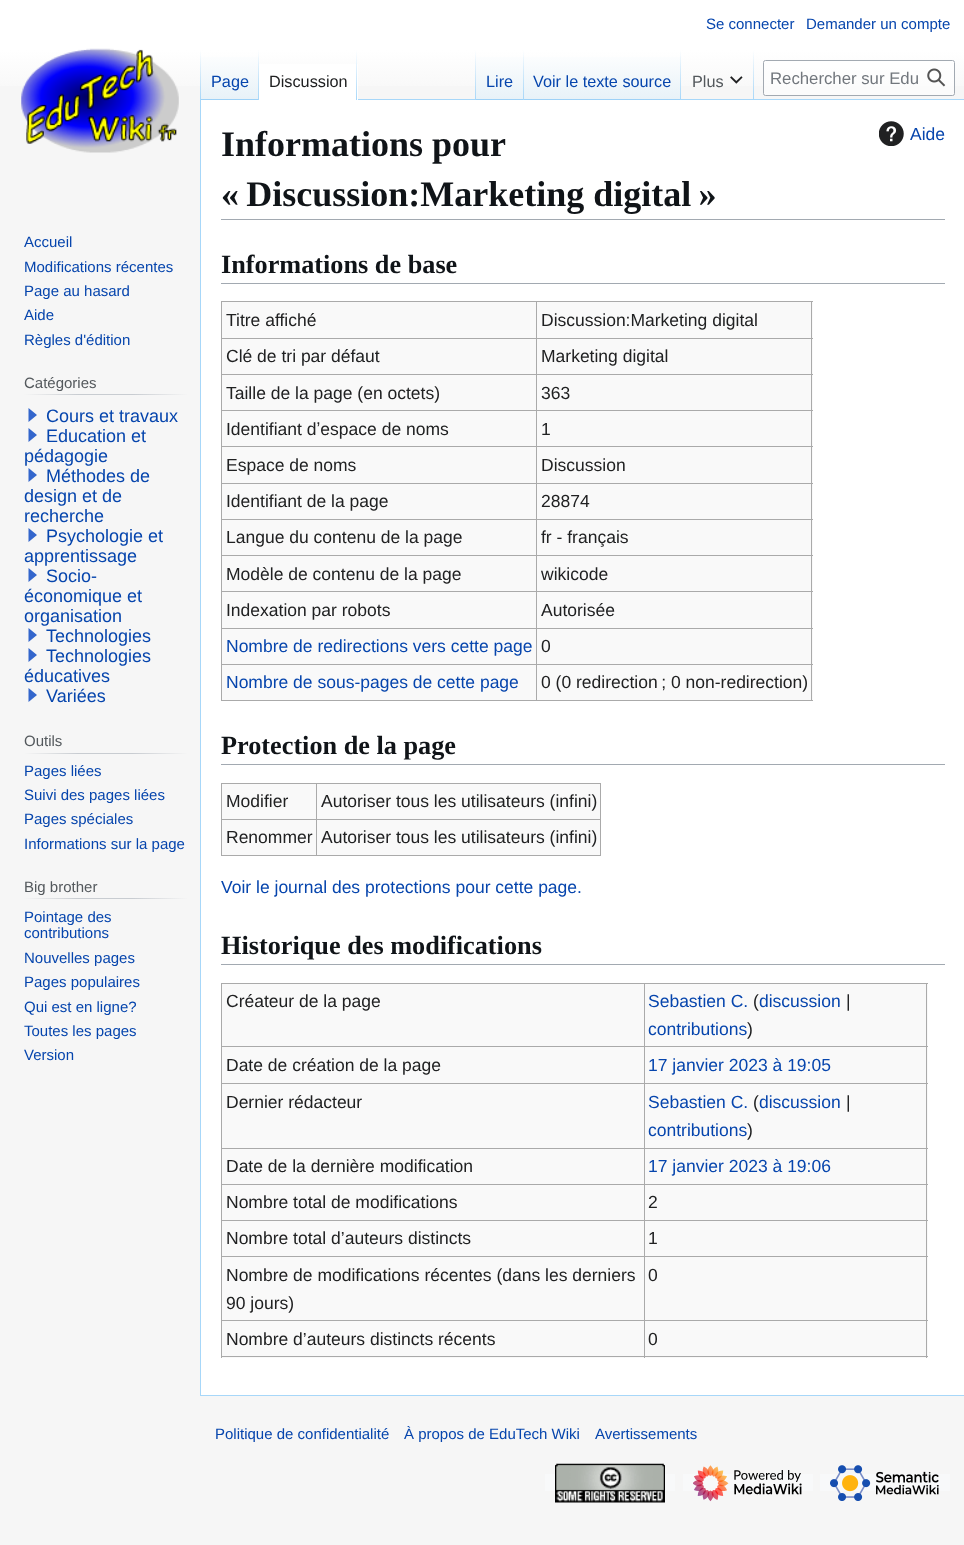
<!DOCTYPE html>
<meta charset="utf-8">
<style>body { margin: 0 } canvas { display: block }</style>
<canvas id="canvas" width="964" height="1545"></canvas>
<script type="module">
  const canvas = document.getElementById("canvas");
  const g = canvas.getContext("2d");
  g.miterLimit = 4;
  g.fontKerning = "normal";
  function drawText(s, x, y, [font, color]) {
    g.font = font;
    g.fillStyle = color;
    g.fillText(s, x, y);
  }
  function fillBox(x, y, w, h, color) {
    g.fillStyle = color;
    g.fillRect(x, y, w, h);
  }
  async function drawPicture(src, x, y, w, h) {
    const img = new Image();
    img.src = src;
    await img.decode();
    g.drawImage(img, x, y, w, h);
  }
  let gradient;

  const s1 = ["15px Liberation Sans", "#0645AD"];
  const s2 = ["16.25px Liberation Sans", "#0645AD"];
  const s3 = ["16.25px Liberation Sans", "#202122"];
  const s4 = ["16.25px Liberation Sans", "#54595D"];
  const s5 = ["16.75px Liberation Sans", "#72777D"];
  const s6 = ["15px Liberation Sans", "#54595D"];
  const s7 = ["18px Liberation Sans", "#0645AD"];
  const s8 = ["bold 36px Liberation Serif", "#101418"];
  const s9 = ["17.5px Liberation Sans", "#0645AD"];
  const s10 = ["bold 26.25px Liberation Serif", "#101418"];
  const s11 = ["17.5px Liberation Sans", "#202122"];

  fillBox(0, 0, 964, 1545, "#F6F6F6");
  gradient = g.createLinearGradient(483, 0, 483, 100);
  gradient.addColorStop(0.5, "#FFFFFF");
  gradient.addColorStop(1, "#F6F6F6");
  g.fillStyle = gradient;
  g.fillRect(0, 0, 964, 86);
  drawText("Se connecter", 706, 29, s1);
  drawText("Demander un compte", 806, 29, s1);
  fillBox(200, 1395, 764, 1, "#A7D7F9");
  fillBox(200, 99, 1, 1297, "#A7D7F9");
  gradient = g.createLinearGradient(201, 50, 201, 100);
  gradient.addColorStop(0, "rgba(167, 215, 249, 0)");
  gradient.addColorStop(1, "#A7D7F9");
  g.fillStyle = gradient;
  g.fillRect(200, 50, 1, 50);
  gradient = g.createLinearGradient(230, 100, 230, 50);
  gradient.addColorStop(0, "#77C1F6");
  gradient.addColorStop(0.03, "#E8F2F8");
  gradient.addColorStop(1, "#FFFFFF");
  g.fillStyle = gradient;
  g.fillRect(201, 57, 58, 43);
  gradient = g.createLinearGradient(258, 50, 258, 100);
  gradient.addColorStop(0, "rgba(167, 215, 249, 0)");
  gradient.addColorStop(1, "#A7D7F9");
  g.fillStyle = gradient;
  g.fillRect(258, 50, 1, 50);
  drawText("Page", 211, 87, s2);
  fillBox(259, 64, 99, 36, "#FFFFFF");
  gradient = g.createLinearGradient(357, 50, 357, 100);
  gradient.addColorStop(0, "#FFFFFF");
  gradient.addColorStop(1, "#A7D7F9");
  g.fillStyle = gradient;
  g.fillRect(356, 50, 1, 50);
  drawText("Discussion", 269, 87, s3);
  fillBox(358, 99, 606, 1, "#A7D7F9");
  gradient = g.createLinearGradient(476, 50, 476, 100);
  gradient.addColorStop(0, "rgba(167, 215, 249, 0)");
  gradient.addColorStop(1, "#A7D7F9");
  g.fillStyle = gradient;
  g.fillRect(475, 50, 1, 50);
  gradient = g.createLinearGradient(500, 100, 500, 50);
  gradient.addColorStop(0, "#77C1F6");
  gradient.addColorStop(0.03, "#E8F2F8");
  gradient.addColorStop(1, "#FFFFFF");
  g.fillStyle = gradient;
  g.fillRect(476, 57, 48, 43);
  gradient = g.createLinearGradient(523, 50, 523, 100);
  gradient.addColorStop(0, "rgba(167, 215, 249, 0)");
  gradient.addColorStop(1, "#A7D7F9");
  g.fillStyle = gradient;
  g.fillRect(523, 50, 1, 50);
  drawText("Lire", 486, 87, s2);
  gradient = g.createLinearGradient(603, 100, 603, 50);
  gradient.addColorStop(0, "#77C1F6");
  gradient.addColorStop(0.03, "#E8F2F8");
  gradient.addColorStop(1, "#FFFFFF");
  g.fillStyle = gradient;
  g.fillRect(524, 57, 157, 43);
  gradient = g.createLinearGradient(681, 50, 681, 100);
  gradient.addColorStop(0, "rgba(167, 215, 249, 0)");
  gradient.addColorStop(1, "#A7D7F9");
  g.fillStyle = gradient;
  g.fillRect(680, 50, 1, 50);
  drawText("Voir le texte source", 533, 87, s2);
  gradient = g.createLinearGradient(753, 50, 753, 100);
  gradient.addColorStop(0, "rgba(167, 215, 249, 0)");
  gradient.addColorStop(1, "#A7D7F9");
  g.fillStyle = gradient;
  g.fillRect(753, 50, 1, 50);
  drawText("Plus", 692, 87, s4);
  await drawPicture("pic1.png", 730, 76, 13, 8);
  g.fillStyle = "rgba(255, 255, 255, 0.5)";
  g.beginPath();
  g.roundRect(763.5, 60.5, 191, 35, 2);
  g.fill();
  g.strokeStyle = "#A2A9B1";
  g.stroke();
  drawText("Rechercher sur Edu", 770, 84, s5);
  await drawPicture("pic2.png", 927, 68, 19, 19);
  await drawPicture("pic3.png", 21, 48, 158, 105);
  drawText("Accueil", 24, 247, s1);
  drawText("Modifications récentes", 24, 272, s1);
  drawText("Page au hasard", 24, 296, s1);
  drawText("Aide", 24, 320, s1);
  drawText("Règles d'édition", 24, 345, s1);
  gradient = g.createLinearGradient(24, 394, 188, 394);
  gradient.addColorStop(0, "#F6F6F6");
  gradient.addColorStop(0.33, "#C8CCD1");
  gradient.addColorStop(0.66, "#C8CCD1");
  gradient.addColorStop(1, "#F6F6F6");
  g.fillStyle = gradient;
  g.fillRect(24, 394, 164, 1);
  drawText("Catégories", 24, 388, s6);
  g.fillStyle = "#3366CC";
  g.beginPath();
  g.moveTo(37, 415);
  g.lineTo(28.5, 422);
  g.lineTo(28.5, 408);
  g.closePath();
  g.moveTo(37, 435);
  g.lineTo(28.5, 442);
  g.lineTo(28.5, 428);
  g.closePath();
  g.fill();
  drawText("Cours et travaux", 46, 422, s7);
  drawText("Education et", 46, 442, s7);
  drawText("pédagogie", 24, 462, s7);
  g.fillStyle = "#3366CC";
  g.beginPath();
  g.moveTo(37, 475);
  g.lineTo(28.5, 482);
  g.lineTo(28.5, 468);
  g.closePath();
  g.fill();
  drawText("Méthodes de", 46, 482, s7);
  drawText("design et de", 24, 502, s7);
  drawText("recherche", 24, 522, s7);
  drawText("apprentissage", 24, 562, s7);
  g.fillStyle = "#3366CC";
  g.beginPath();
  g.moveTo(37, 535);
  g.lineTo(28.5, 542);
  g.lineTo(28.5, 528);
  g.closePath();
  g.moveTo(37, 575);
  g.lineTo(28.5, 582);
  g.lineTo(28.5, 568);
  g.closePath();
  g.fill();
  drawText("Psychologie et", 46, 542, s7);
  drawText("Socio-", 46, 582, s7);
  drawText("économique et", 24, 602, s7);
  drawText("organisation", 24, 622, s7);
  g.fillStyle = "#3366CC";
  g.beginPath();
  g.moveTo(37, 635);
  g.lineTo(28.5, 642);
  g.lineTo(28.5, 628);
  g.closePath();
  g.moveTo(37, 655);
  g.lineTo(28.5, 662);
  g.lineTo(28.5, 648);
  g.closePath();
  g.fill();
  drawText("Technologies", 46, 642, s7);
  drawText("Technologies", 46, 662, s7);
  drawText("éducatives", 24, 682, s7);
  g.fillStyle = "#3366CC";
  g.beginPath();
  g.moveTo(37, 695);
  g.lineTo(28.5, 702);
  g.lineTo(28.5, 688);
  g.closePath();
  g.fill();
  drawText("Variées", 46, 702, s7);
  gradient = g.createLinearGradient(24, 753, 188, 753);
  gradient.addColorStop(0, "#F6F6F6");
  gradient.addColorStop(0.33, "#C8CCD1");
  gradient.addColorStop(0.66, "#C8CCD1");
  gradient.addColorStop(1, "#F6F6F6");
  g.fillStyle = gradient;
  g.fillRect(24, 753, 164, 1);
  drawText("Outils", 24, 746, s6);
  drawText("Pages liées", 24, 776, s1);
  drawText("Suivi des pages liées", 24, 800, s1);
  drawText("Pages spéciales", 24, 824, s1);
  drawText("Informations sur la page", 24, 849, s1);
  gradient = g.createLinearGradient(24, 898, 188, 898);
  gradient.addColorStop(0, "#F6F6F6");
  gradient.addColorStop(0.33, "#C8CCD1");
  gradient.addColorStop(0.66, "#C8CCD1");
  gradient.addColorStop(1, "#F6F6F6");
  g.fillStyle = gradient;
  g.fillRect(24, 898, 164, 1);
  drawText("Big brother", 24, 892, s6);
  drawText("Pointage des", 24, 922, s1);
  drawText("contributions", 24, 938, s1);
  drawText("Nouvelles pages", 24, 963, s1);
  drawText("Pages populaires", 24, 987, s1);
  drawText("Qui est en ligne?", 24, 1012, s1);
  drawText("Toutes les pages", 24, 1036, s1);
  drawText("Version", 24, 1060, s1);
  fillBox(201, 100, 763, 1295, "#FFFFFF");
  fillBox(221, 219, 724, 1, "#A2A9B1");
  drawText("Informations pour", 221, 156, s8);
  drawText("« Discussion:Marketing digital »", 221, 206, s8);
  await drawPicture("pic4.png", 879, 121, 25, 25);
  drawText("Aide", 910, 140, s9);
  fillBox(221, 283, 724, 1, "#A2A9B1");
  drawText("Informations de base", 221, 273, s10);
  fillBox(222, 302, 591, 398, "#F9F9F9");
  fillBox(221, 301, 592, 1, "#AAAAAA");
  fillBox(811, 301, 1, 400, "#AAAAAA");
  fillBox(221, 700, 592, 1, "#AAAAAA");
  fillBox(221, 301, 1, 400, "#AAAAAA");
  drawText("Titre affiché", 226, 326, s11);
  fillBox(536, 338, 277, 1, "#AAAAAA");
  fillBox(536, 374, 277, 1, "#AAAAAA");
  fillBox(536, 410, 277, 1, "#AAAAAA");
  fillBox(536, 446, 277, 1, "#AAAAAA");
  fillBox(536, 483, 277, 1, "#AAAAAA");
  fillBox(536, 519, 277, 1, "#AAAAAA");
  fillBox(536, 555, 277, 1, "#AAAAAA");
  fillBox(536, 591, 277, 1, "#AAAAAA");
  fillBox(536, 628, 277, 1, "#AAAAAA");
  fillBox(536, 664, 277, 1, "#AAAAAA");
  fillBox(536, 664, 1, 37, "#AAAAAA");
  fillBox(221, 664, 317, 1, "#AAAAAA");
  fillBox(536, 628, 1, 37, "#AAAAAA");
  fillBox(221, 628, 317, 1, "#AAAAAA");
  fillBox(536, 591, 1, 38, "#AAAAAA");
  fillBox(221, 591, 317, 1, "#AAAAAA");
  fillBox(536, 555, 1, 38, "#AAAAAA");
  fillBox(221, 555, 317, 1, "#AAAAAA");
  fillBox(536, 519, 1, 37, "#AAAAAA");
  fillBox(221, 519, 317, 1, "#AAAAAA");
  fillBox(536, 483, 1, 37, "#AAAAAA");
  fillBox(221, 483, 317, 1, "#AAAAAA");
  fillBox(536, 446, 1, 38, "#AAAAAA");
  fillBox(221, 446, 317, 1, "#AAAAAA");
  fillBox(536, 410, 1, 38, "#AAAAAA");
  fillBox(221, 410, 317, 1, "#AAAAAA");
  fillBox(536, 374, 1, 37, "#AAAAAA");
  fillBox(221, 374, 317, 1, "#AAAAAA");
  fillBox(536, 338, 1, 37, "#AAAAAA");
  fillBox(221, 338, 317, 1, "#AAAAAA");
  fillBox(536, 301, 1, 38, "#AAAAAA");
  drawText("Discussion:Marketing digital", 541, 326, s11);
  drawText("Clé de tri par défaut", 226, 362, s11);
  drawText("Marketing digital", 541, 362, s11);
  drawText("Taille de la page (en octets)", 226, 399, s11);
  drawText("363", 541, 399, s11);
  drawText("Identifiant dʼespace de noms", 226, 435, s11);
  drawText("1", 541, 435, s11);
  drawText("Espace de noms", 226, 471, s11);
  drawText("Discussion", 541, 471, s11);
  drawText("Identifiant de la page", 226, 507, s11);
  drawText("28874", 541, 507, s11);
  drawText("Langue du contenu de la page", 226, 543, s11);
  drawText("fr - français", 541, 543, s11);
  drawText("Modèle de contenu de la page", 226, 580, s11);
  drawText("wikicode", 541, 580, s11);
  drawText("Indexation par robots", 226, 616, s11);
  drawText("Autorisée", 541, 616, s11);
  drawText("Nombre de redirections vers cette page", 226, 652, s9);
  drawText("0", 541, 652, s11);
  drawText("Nombre de sous-pages de cette page", 226, 688, s9);
  drawText("0 (0 redirection ; 0 non-redirection)", 541, 688, s11);
  fillBox(221, 764, 724, 1, "#A2A9B1");
  drawText("Protection de la page", 221, 754, s10);
  fillBox(222, 784, 378, 71, "#F9F9F9");
  fillBox(221, 783, 380, 1, "#AAAAAA");
  fillBox(600, 783, 1, 73, "#AAAAAA");
  fillBox(221, 855, 380, 1, "#AAAAAA");
  fillBox(221, 783, 1, 73, "#AAAAAA");
  drawText("Modifier", 226, 807, s11);
  fillBox(316, 819, 285, 1, "#AAAAAA");
  fillBox(316, 819, 1, 37, "#AAAAAA");
  fillBox(221, 819, 97, 1, "#AAAAAA");
  fillBox(316, 783, 1, 37, "#AAAAAA");
  drawText("Autoriser tous les utilisateurs (infini)", 321, 807, s11);
  drawText("Renommer", 226, 843, s11);
  drawText("Autoriser tous les utilisateurs (infini)", 321, 843, s11);
  drawText("Voir le journal des protections pour cette page.", 221, 893, s9);
  fillBox(221, 964, 724, 1, "#A2A9B1");
  drawText("Historique des modifications", 221, 954, s10);
  fillBox(222, 984, 706, 374, "#F9F9F9");
  fillBox(221, 983, 707, 1, "#AAAAAA");
  fillBox(926, 983, 1, 375, "#AAAAAA");
  fillBox(221, 1356, 707, 1, "#AAAAAA");
  fillBox(221, 983, 1, 375, "#AAAAAA");
  drawText("Créateur de la page", 226, 1007, s11);
  fillBox(644, 1046, 284, 1, "#AAAAAA");
  fillBox(644, 1083, 284, 1, "#AAAAAA");
  fillBox(644, 1148, 284, 1, "#AAAAAA");
  fillBox(644, 1184, 284, 1, "#AAAAAA");
  fillBox(644, 1220, 284, 1, "#AAAAAA");
  fillBox(644, 1256, 284, 1, "#AAAAAA");
  fillBox(644, 1320, 284, 1, "#AAAAAA");
  fillBox(644, 1320, 1, 38, "#AAAAAA");
  fillBox(221, 1320, 424, 1, "#AAAAAA");
  fillBox(644, 1256, 1, 65, "#AAAAAA");
  fillBox(221, 1256, 424, 1, "#AAAAAA");
  fillBox(644, 1220, 1, 38, "#AAAAAA");
  fillBox(221, 1220, 424, 1, "#AAAAAA");
  fillBox(644, 1184, 1, 37, "#AAAAAA");
  fillBox(221, 1184, 424, 1, "#AAAAAA");
  fillBox(644, 1148, 1, 37, "#AAAAAA");
  fillBox(221, 1148, 424, 1, "#AAAAAA");
  fillBox(644, 1083, 1, 66, "#AAAAAA");
  fillBox(221, 1083, 424, 1, "#AAAAAA");
  fillBox(644, 1046, 1, 38, "#AAAAAA");
  fillBox(221, 1046, 424, 1, "#AAAAAA");
  fillBox(644, 983, 1, 65, "#AAAAAA");
  drawText("Sebastien C.", 648, 1007, s9);
  drawText("(", 753, 1007, s11);
  drawText("discussion", 759, 1007, s9);
  drawText("|", 846, 1007, s11);
  drawText("contributions", 648, 1035, s9);
  drawText(")", 747, 1035, s11);
  drawText("Date de création de la page", 226, 1071, s11);
  drawText("17 janvier 2023 à 19:05", 648, 1071, s9);
  drawText("Dernier rédacteur", 226, 1108, s11);
  drawText("Sebastien C.", 648, 1108, s9);
  drawText("(", 753, 1108, s11);
  drawText("discussion", 759, 1108, s9);
  drawText("|", 846, 1108, s11);
  drawText("contributions", 648, 1136, s9);
  drawText(")", 747, 1136, s11);
  drawText("Date de la dernière modification", 226, 1172, s11);
  drawText("17 janvier 2023 à 19:06", 648, 1172, s9);
  drawText("Nombre total de modifications", 226, 1208, s11);
  drawText("2", 648, 1208, s11);
  drawText("Nombre total d’auteurs distincts", 226, 1244, s11);
  drawText("1", 648, 1244, s11);
  drawText("Nombre de modifications récentes (dans les derniers", 226, 1281, s11);
  drawText("90 jours)", 226, 1309, s11);
  drawText("0", 648, 1281, s11);
  drawText("Nombre d’auteurs distincts récents", 226, 1345, s11);
  drawText("0", 648, 1345, s11);
  drawText("Politique de confidentialité", 215, 1439, s1);
  drawText("À propos de EduTech Wiki", 404, 1439, s1);
  drawText("Avertissements", 595, 1439, s1);
  fillBox(545, 1474, 130, 17, "#F8F9FA");
  await drawPicture("pic5.png", 555, 1463, 110, 40);
  fillBox(683, 1474, 130, 17, "#F8F9FA");
  await drawPicture("pic6.png", 693, 1465, 109, 37);
  fillBox(820, 1474, 130, 17, "#F8F9FA");
  await drawPicture("pic7.png", 830, 1465, 109, 36);
</script>
